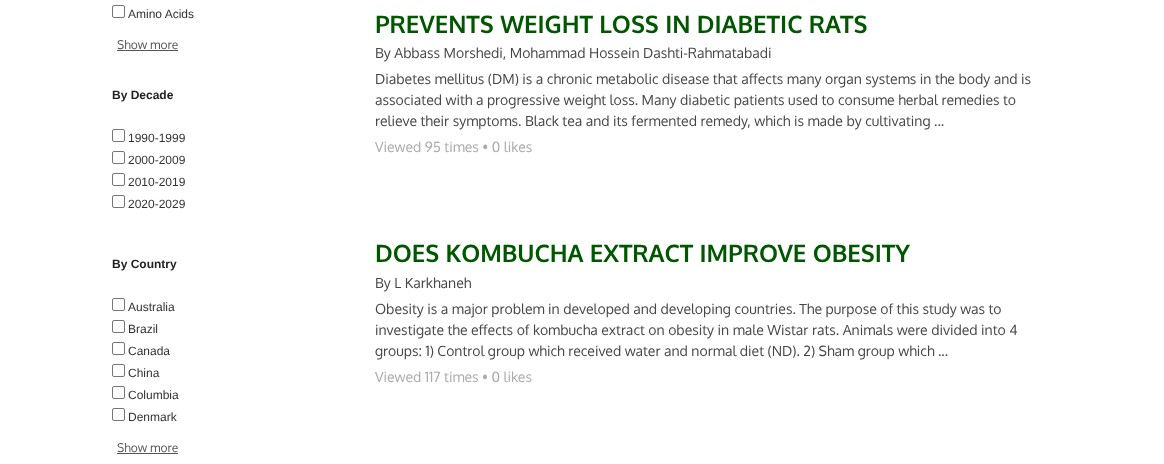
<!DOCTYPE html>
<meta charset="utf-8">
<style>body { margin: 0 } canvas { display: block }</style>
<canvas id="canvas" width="1164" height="464"></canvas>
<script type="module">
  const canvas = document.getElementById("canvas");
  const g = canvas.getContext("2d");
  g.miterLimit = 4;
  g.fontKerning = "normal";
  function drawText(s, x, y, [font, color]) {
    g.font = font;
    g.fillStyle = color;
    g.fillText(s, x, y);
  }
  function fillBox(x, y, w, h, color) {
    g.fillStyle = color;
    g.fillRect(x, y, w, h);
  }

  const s1 = ["12px Liberation Sans", "#333333"];
  const s2 = ["12px Oxygen", "#555555"];
  const s3 = ["bold 12px Liberation Sans", "#222222"];
  const s4 = ["bold 24px Oxygen", "#005700"];
  const s5 = ["14px Oxygen", "#464646"];
  const s6 = ["14px Oxygen", "#AAAAAA"];

  fillBox(0, 0, 1164, 464, "#FFFFFF");
  g.beginPath();
  g.roundRect(112.5, 5.5, 12, 12, 1.5);
  g.strokeStyle = "#767676";
  g.stroke();
  drawText("Amino Acids", 128, 18, s1);
  drawText("Show more", 117, 49, s2);
  fillBox(117, 50, 61, 1, "#555555");
  drawText("By Decade", 112, 99, s3);
  g.beginPath();
  g.roundRect(112.5, 129.5, 12, 12, 1.5);
  g.stroke();
  drawText("1990-1999", 128, 142, s1);
  g.beginPath();
  g.roundRect(112.5, 151.5, 12, 12, 1.5);
  g.stroke();
  drawText("2000-2009", 128, 164, s1);
  g.beginPath();
  g.roundRect(112.5, 173.5, 12, 12, 1.5);
  g.stroke();
  drawText("2010-2019", 128, 186, s1);
  g.beginPath();
  g.roundRect(112.5, 195.5, 12, 12, 1.5);
  g.stroke();
  drawText("2020-2029", 128, 208, s1);
  drawText("By Country", 112, 268, s3);
  g.beginPath();
  g.roundRect(112.5, 298.5, 12, 12, 1.5);
  g.stroke();
  drawText("Australia", 128, 311, s1);
  g.beginPath();
  g.roundRect(112.5, 320.5, 12, 12, 1.5);
  g.stroke();
  drawText("Brazil", 128, 333, s1);
  g.beginPath();
  g.roundRect(112.5, 342.5, 12, 12, 1.5);
  g.stroke();
  drawText("Canada", 128, 355, s1);
  g.beginPath();
  g.roundRect(112.5, 364.5, 12, 12, 1.5);
  g.stroke();
  drawText("China", 128, 377, s1);
  g.beginPath();
  g.roundRect(112.5, 386.5, 12, 12, 1.5);
  g.stroke();
  drawText("Columbia", 128, 399, s1);
  g.beginPath();
  g.roundRect(112.5, 408.5, 12, 12, 1.5);
  g.stroke();
  drawText("Denmark", 128, 421, s1);
  drawText("Show more", 117, 452, s2);
  fillBox(117, 453, 61, 1, "#555555");
  drawText("PREVENTS WEIGHT LOSS IN DIABETIC RATS", 375, 33, s4);
  drawText("By Abbass Morshedi, Mohammad Hossein Dashti-Rahmatabadi", 375, 58, s5);
  drawText("Diabetes mellitus (DM) is a chronic metabolic disease that affects many organ systems in the body and is", 375, 84, s5);
  drawText("associated with a progressive weight loss. Many diabetic patients used to consume herbal remedies to", 375, 105, s5);
  drawText("relieve their symptoms. Black tea and its fermented remedy, which is made by cultivating ...", 375, 126, s5);
  drawText("Viewed 95 times • 0 likes", 375, 152, s6);
  drawText("DOES KOMBUCHA EXTRACT IMPROVE OBESITY", 375, 262, s4);
  drawText("By L Karkhaneh", 375, 288, s5);
  drawText("Obesity is a major problem in developed and developing countries. The purpose of this study was to", 375, 314, s5);
  drawText("investigate the effects of kombucha extract on obesity in male Wistar rats. Animals were divided into 4", 375, 335, s5);
  drawText("groups: 1) Control group which received water and normal diet (ND). 2) Sham group which ...", 375, 356, s5);
  drawText("Viewed 117 times • 0 likes", 375, 382, s6);
</script>
